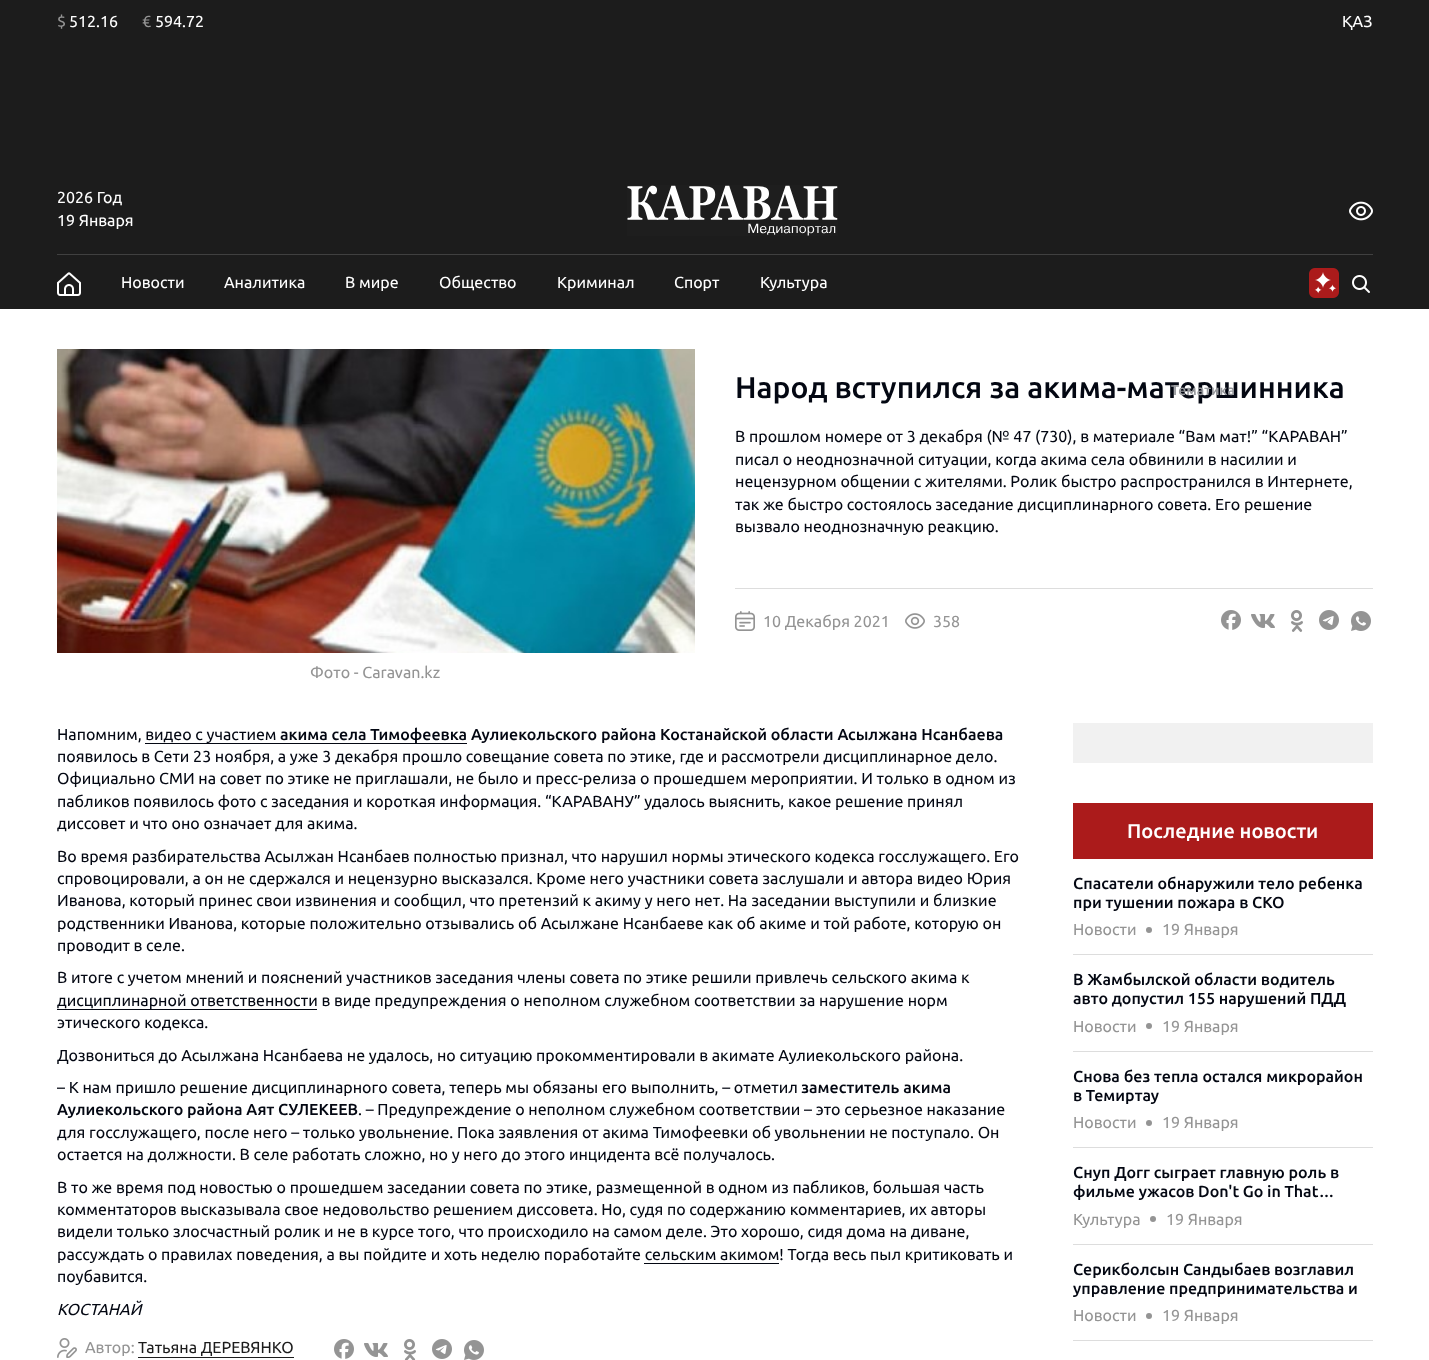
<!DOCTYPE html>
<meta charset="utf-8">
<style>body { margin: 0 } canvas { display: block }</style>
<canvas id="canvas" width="1429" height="1360"></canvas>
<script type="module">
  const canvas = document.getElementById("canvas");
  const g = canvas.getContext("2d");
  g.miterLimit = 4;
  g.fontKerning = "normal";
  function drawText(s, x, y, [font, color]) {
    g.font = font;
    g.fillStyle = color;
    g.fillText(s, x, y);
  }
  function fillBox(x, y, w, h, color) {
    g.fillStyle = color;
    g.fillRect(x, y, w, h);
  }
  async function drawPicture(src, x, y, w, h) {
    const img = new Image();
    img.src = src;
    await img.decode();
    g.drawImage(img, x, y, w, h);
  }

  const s1 = ["16px Ubuntu", "#949494"];
  const s2 = ["16px Ubuntu", "#FFFFFF"];
  const s3 = ["500 30px Ubuntu", "#030712"];
  const s4 = ["500 14px Ubuntu", "#97999D"];
  const s5 = ["16px Ubuntu", "#030712"];
  const s6 = ["500 16px Ubuntu", "#030712"];
  const s7 = ["italic 16px Ubuntu", "#030712"];
  const s8 = ["16px Ubuntu", "#1C1C1C"];
  const s9 = ["500 20px Ubuntu", "#FFFFFF"];

  fillBox(0, 0, 1429, 1360, "#FFFFFF");
  fillBox(0, 0, 1429, 309, "#1C1C1C");
  drawText("$", 57, 27, s1);
  drawText("512.16", 69, 27, s2);
  drawText("€", 142, 27, s1);
  drawText("594.72", 155, 27, s2);
  drawText("ҚАЗ", 1342, 27, s2);
  drawText("2026 Год", 57, 203, s2);
  drawText("19 Января", 57, 226, s2);
  await drawPicture("pic1.png", 627, 185, 211, 51);
  await drawPicture("pic2.png", 1349, 201, 24, 20);
  fillBox(57, 254, 1316, 1, "#404040");
  await drawPicture("pic3.png", 57, 272, 24, 24);
  drawText("Новости", 121, 288, s2);
  drawText("Аналитика", 224, 288, s2);
  drawText("В мире", 345, 288, s2);
  drawText("Общество", 439, 288, s2);
  drawText("Криминал", 557, 288, s2);
  drawText("Спорт", 674, 288, s2);
  drawText("Культура", 760, 288, s2);
  await drawPicture("pic4.png", 1309, 268, 30, 30);
  await drawPicture("pic5.png", 1352, 275, 18, 18);
  drawText("Народ вступился за акима-матершинника", 735, 398, s3);
  drawText("Тематика", 1171, 395, s4);
  await drawPicture("pic6.png", 57, 349, 638, 304);
  drawText("В прошлом номере от 3 декабря (№ 47 (730), в материале “Вам мат!” “КАРАВАН”", 735, 442, s5);
  drawText("писал о неоднозначной ситуации, когда акима села обвинили в насилии и", 735, 465, s5);
  drawText("нецензурном общении с жителями. Ролик быстро распространился в Интернете,", 735, 487, s5);
  drawText("так же быстро состоялось заседание дисциплинарного совета. Его решение", 735, 510, s5);
  drawText("вызвало неоднозначную реакцию.", 735, 532, s5);
  fillBox(735, 588, 638, 1, "#DDDDDD");
  await drawPicture("pic7.png", 735, 611, 20, 20);
  drawText("10 Декабря 2021", 763, 627, s1);
  await drawPicture("pic8.png", 905, 613, 20, 16);
  drawText("358", 933, 627, s1);
  await drawPicture("pic9.png", 1221, 610, 20, 20);
  await drawPicture("pic10.png", 1251, 614, 24, 14);
  await drawPicture("pic11.png", 1291, 610, 12, 22);
  await drawPicture("pic12.png", 1319, 610, 20, 20);
  await drawPicture("pic13.png", 1351, 611, 20, 20);
  drawText("Фото - Caravan.kz", 310, 678, s1);
  drawText("Напомним, видео с участием", 57, 740, s5);
  drawText("акима села Тимофеевка Аулиекольского района Костанайской области Асылжана Нсанбаева", 280, 740, s6);
  fillBox(145, 743, 322, 1, "#030712");
  drawText("появилось в Сети 23 ноября, а уже 3 декабря прошло совещание совета по этике, где и рассмотрели дисциплинарное дело.", 57, 762, s5);
  drawText("Официально СМИ на совет по этике не приглашали, не было и пресс-релиза о прошедшем мероприятии. И только в одном из", 57, 784, s5);
  drawText("пабликов появилось фото с заседания и короткая информация. “КАРАВАНУ” удалось выяснить, какое решение принял", 57, 807, s5);
  drawText("диссовет и что оно означает для акима.", 57, 829, s5);
  drawText("Во время разбирательства Асылжан Нсанбаев полностью признал, что нарушил нормы этического кодекса госслужащего. Его", 57, 862, s5);
  drawText("спровоцировали, а он не сдержался и нецензурно высказался. Кроме него участники совета заслушали и автора видео Юрия", 57, 884, s5);
  drawText("Иванова, который принес свои извинения и сообщил, что претензий к акиму у него нет. На заседании выступили и близкие", 57, 906, s5);
  drawText("родственники Иванова, которые положительно отзывались об Асылжане Нсанбаеве как об акиме и той работе, которую он", 57, 929, s5);
  drawText("проводит в селе.", 57, 951, s5);
  drawText("В итоге с учетом мнений и пояснений участников заседания члены совета по этике решили привлечь сельского акима к", 57, 983, s5);
  drawText("дисциплинарной ответственности в виде предупреждения о неполном служебном соответствии за нарушение норм", 57, 1006, s5);
  fillBox(57, 1009, 260, 1, "#030712");
  drawText("этического кодекса.", 57, 1028, s5);
  drawText("Дозвониться до Асылжана Нсанбаева не удалось, но ситуацию прокомментировали в акимате Аулиекольского района.", 57, 1061, s5);
  drawText("– К нам пришло решение дисциплинарного совета, теперь мы обязаны его выполнить, – отметил", 57, 1093, s5);
  drawText("заместитель акима", 801, 1093, s6);
  drawText("Аулиекольского района Аят СУЛЕКЕЕВ", 57, 1115, s6);
  drawText(". – Предупреждение о неполном служебном соответствии – это серьезное наказание", 358, 1115, s5);
  drawText("для госслужащего, после него – только увольнение. Пока заявления от акима Тимофеевки об увольнении не поступало. Он", 57, 1138, s5);
  drawText("остается на должности. В селе работать сложно, но у него до этого инцидента всё получалось.", 57, 1160, s5);
  drawText("В то же время под новостью о прошедшем заседании совета по этике, размещенной в одном из пабликов, большая часть", 57, 1193, s5);
  drawText("комментаторов высказывала свое недовольство решением диссовета. Но, судя по содержанию комментариев, их авторы", 57, 1215, s5);
  drawText("видели только злосчастный ролик и не в курсе того, что происходило на самом деле. Это хорошо, сидя дома на диване,", 57, 1237, s5);
  drawText("рассуждать о правилах поведения, а вы пойдите и хоть неделю поработайте сельским акимом! Тогда весь пыл критиковать и", 57, 1260, s5);
  fillBox(644, 1263, 135, 1, "#030712");
  drawText("поубавится.", 57, 1282, s5);
  drawText("КОСТАНАЙ", 57, 1315, s7);
  await drawPicture("pic14.png", 57, 1338, 20, 20);
  drawText("Автор:", 85, 1353, s1);
  drawText("Татьяна ДЕРЕВЯНКО", 138, 1353, s8);
  fillBox(138, 1357, 156, 1, "#1C1C1C");
  await drawPicture("pic9.png", 334, 1339, 20, 20);
  await drawPicture("pic10.png", 364, 1343, 24, 14);
  await drawPicture("pic15.png", 404, 1339, 12, 21);
  await drawPicture("pic12.png", 432, 1339, 20, 20);
  await drawPicture("pic13.png", 464, 1340, 20, 20);
  fillBox(1073, 723, 300, 40, "#F1F1F1");
  fillBox(1073, 803, 300, 56, "#AB1B1B");
  drawText("Последние новости", 1127, 838, s9);
  fillBox(1073, 954, 300, 1, "#DDDDDD");
  drawText("Спасатели обнаружили тело ребенка", 1073, 889, s6);
  drawText("при тушении пожара в СКО", 1073, 908, s6);
  drawText("Новости", 1073, 935, s1);
  g.beginPath();
  g.arc(1149, 930, 3, 0, Math.PI * 2);
  g.fill();
  drawText("19 Января", 1162, 935, s1);
  fillBox(1073, 1051, 300, 1, "#DDDDDD");
  drawText("В Жамбылской области водитель", 1073, 985, s6);
  drawText("авто допустил 155 нарушений ПДД", 1073, 1004, s6);
  drawText("Новости", 1073, 1032, s1);
  g.beginPath();
  g.arc(1149, 1026, 3, 0, Math.PI * 2);
  g.fill();
  drawText("19 Января", 1162, 1032, s1);
  fillBox(1073, 1147, 300, 1, "#DDDDDD");
  drawText("Снова без тепла остался микрорайон", 1073, 1082, s6);
  drawText("в Темиртау", 1073, 1101, s6);
  drawText("Новости", 1073, 1128, s1);
  g.beginPath();
  g.arc(1149, 1123, 3, 0, Math.PI * 2);
  g.fill();
  drawText("19 Января", 1162, 1128, s1);
  fillBox(1073, 1244, 300, 1, "#DDDDDD");
  drawText("Снуп Догг сыграет главную роль в", 1073, 1178, s6);
  drawText("фильме ужасов Don't Go in That…", 1073, 1197, s6);
  drawText("Культура", 1073, 1225, s1);
  g.beginPath();
  g.arc(1153, 1219, 3, 0, Math.PI * 2);
  g.fill();
  drawText("19 Января", 1166, 1225, s1);
  fillBox(1073, 1340, 300, 1, "#DDDDDD");
  drawText("Серикболсын Сандыбаев возглавил", 1073, 1275, s6);
  g.save();
  g.beginPath();
  g.rect(1073, 1260, 300, 38);
  g.clip();
  drawText("управление предпринимательства и", 1073, 1294, s6);
  g.restore();
  drawText("Новости", 1073, 1321, s1);
  g.beginPath();
  g.arc(1149, 1316, 3, 0, Math.PI * 2);
  g.fill();
  drawText("19 Января", 1162, 1321, s1);
</script>
